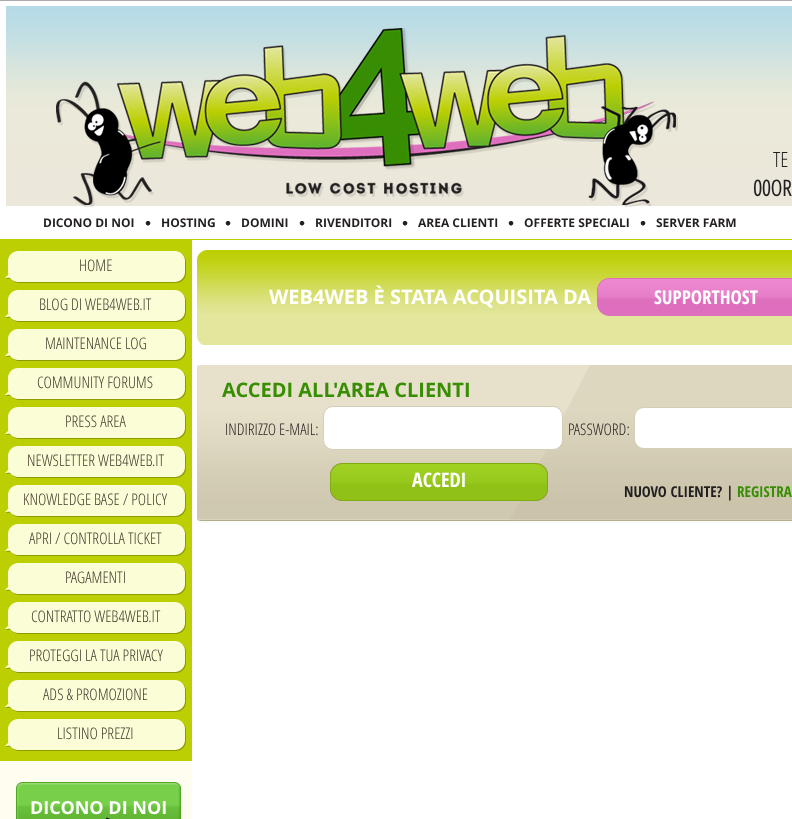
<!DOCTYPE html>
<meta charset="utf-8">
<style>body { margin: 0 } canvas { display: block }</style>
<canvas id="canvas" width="792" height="819"></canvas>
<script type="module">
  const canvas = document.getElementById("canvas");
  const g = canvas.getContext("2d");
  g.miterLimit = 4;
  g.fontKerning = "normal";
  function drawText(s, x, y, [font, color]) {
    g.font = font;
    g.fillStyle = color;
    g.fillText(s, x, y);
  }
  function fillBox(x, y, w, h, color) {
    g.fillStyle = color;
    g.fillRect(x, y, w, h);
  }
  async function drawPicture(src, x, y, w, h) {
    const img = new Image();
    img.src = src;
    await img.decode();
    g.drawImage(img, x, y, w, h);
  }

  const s1 = ["300 21px Open Sans", "#231F20"];
  const s2 = ["bold 22px 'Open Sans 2'", "#231F20"];
  const s3 = ["bold 12px Open Sans", "#231F20"];
  const s4 = ["300 16px Open Sans", "#433A2E"];
  const s5 = ["bold 18px Open Sans", "#FFFFFF"];
  const s6 = ["bold 20px Open Sans", "#FFFFFF"];
  const s7 = ["bold 19px Open Sans Condensed", "#FFFFFF"];
  const s8 = ["bold 20px Open Sans", "#378E03"];
  const s9 = ["300 16px Open Sans", "#231F20"];
  const s10 = ["bold 20px Open Sans Condensed", "#FFFFFF"];
  const s11 = ["bold 15px Open Sans Condensed", "#231F20"];
  const s12 = ["bold 15px Open Sans Condensed", "#378E03"];

  fillBox(0, 0, 792, 819, "#FFFFFF");
  fillBox(0, 0, 792, 1, "#AAAAAA");
  await drawPicture("pic1.png", 6, 6, 786, 200);
  await drawPicture("pic2.png", 56, 28, 622, 179);
  drawText("TE", 773, 167, s1);
  drawText("00OR", 753, 196, s2);
  fillBox(0, 239, 792, 1, "#BCCF02");
  drawText("DICONO DI NOI", 43, 227, s3);
  await drawPicture("pic3.png", 145, 221, 6, 5);
  drawText("HOSTING", 161, 227, s3);
  await drawPicture("pic3.png", 225, 221, 6, 5);
  drawText("DOMINI", 241, 227, s3);
  await drawPicture("pic3.png", 299, 221, 6, 5);
  drawText("RIVENDITORI", 315, 227, s3);
  await drawPicture("pic3.png", 402, 221, 6, 5);
  drawText("AREA CLIENTI", 418, 227, s3);
  await drawPicture("pic3.png", 508, 221, 6, 5);
  drawText("OFFERTE SPECIALI", 524, 227, s3);
  await drawPicture("pic3.png", 640, 221, 6, 5);
  drawText("SERVER FARM", 656, 227, s3);
  fillBox(0, 240, 192, 521, "#BCCF02");
  await drawPicture("pic4.png", 5, 251, 181, 32);
  drawText("HOME", 79, 271, s4);
  await drawPicture("pic4.png", 5, 290, 181, 32);
  drawText("BLOG DI WEB4WEB.IT", 39, 310, s4);
  await drawPicture("pic4.png", 5, 329, 181, 32);
  drawText("MAINTENANCE LOG", 45, 349, s4);
  await drawPicture("pic4.png", 5, 368, 181, 32);
  drawText("COMMUNITY FORUMS", 37, 388, s4);
  await drawPicture("pic4.png", 5, 407, 181, 32);
  drawText("PRESS AREA", 65, 427, s4);
  await drawPicture("pic4.png", 5, 446, 181, 32);
  drawText("NEWSLETTER WEB4WEB.IT", 27, 466, s4);
  await drawPicture("pic4.png", 5, 485, 181, 32);
  drawText("KNOWLEDGE BASE / POLICY", 23, 505, s4);
  await drawPicture("pic4.png", 5, 524, 181, 32);
  drawText("APRI / CONTROLLA TICKET", 29, 544, s4);
  await drawPicture("pic4.png", 5, 563, 181, 32);
  drawText("PAGAMENTI", 65, 583, s4);
  await drawPicture("pic4.png", 5, 602, 181, 32);
  drawText("CONTRATTO WEB4WEB.IT", 31, 622, s4);
  await drawPicture("pic4.png", 5, 641, 181, 32);
  drawText("PROTEGGI LA TUA PRIVACY", 29, 661, s4);
  await drawPicture("pic4.png", 5, 680, 181, 32);
  drawText("ADS & PROMOZIONE", 43, 700, s4);
  await drawPicture("pic4.png", 5, 719, 181, 32);
  drawText("LISTINO PREZZI", 57, 739, s4);
  fillBox(0, 761, 192, 58, "#FFFCF0");
  await drawPicture("pic5.png", 15, 781, 168, 38);
  drawText("DICONO DI NOI", 30, 814, s5);
  await drawPicture("pic6.png", 197, 250, 595, 95);
  drawText("WEB4WEB È STATA ACQUISITA DA", 269, 304, s6);
  await drawPicture("pic7.png", 597, 278, 195, 38);
  drawText("SUPPORTHOST", 654, 304, s7);
  await drawPicture("pic8.png", 197, 365, 595, 158);
  drawText("ACCEDI ALL'AREA CLIENTI", 222, 397, s8);
  drawText("INDIRIZZO E-MAIL:", 225, 435, s9);
  g.fillStyle = "#FFFFFF";
  g.beginPath();
  g.roundRect(323.5, 406.5, 239, 43, 9.5);
  g.fill();
  g.strokeStyle = "#D5CEB7";
  g.stroke();
  drawText("PASSWORD:", 568, 435, s9);
  g.fillStyle = "#FFFFFF";
  g.beginPath();
  g.roundRect(634.5, 407.5, 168, 41, 9.5);
  g.fill();
  g.stroke();
  await drawPicture("pic9.png", 330, 463, 218, 38);
  drawText("ACCEDI", 412, 487, s10);
  drawText("NUOVO CLIENTE? |", 624, 497, s11);
  drawText("REGISTRA", 737, 497, s12);
</script>
